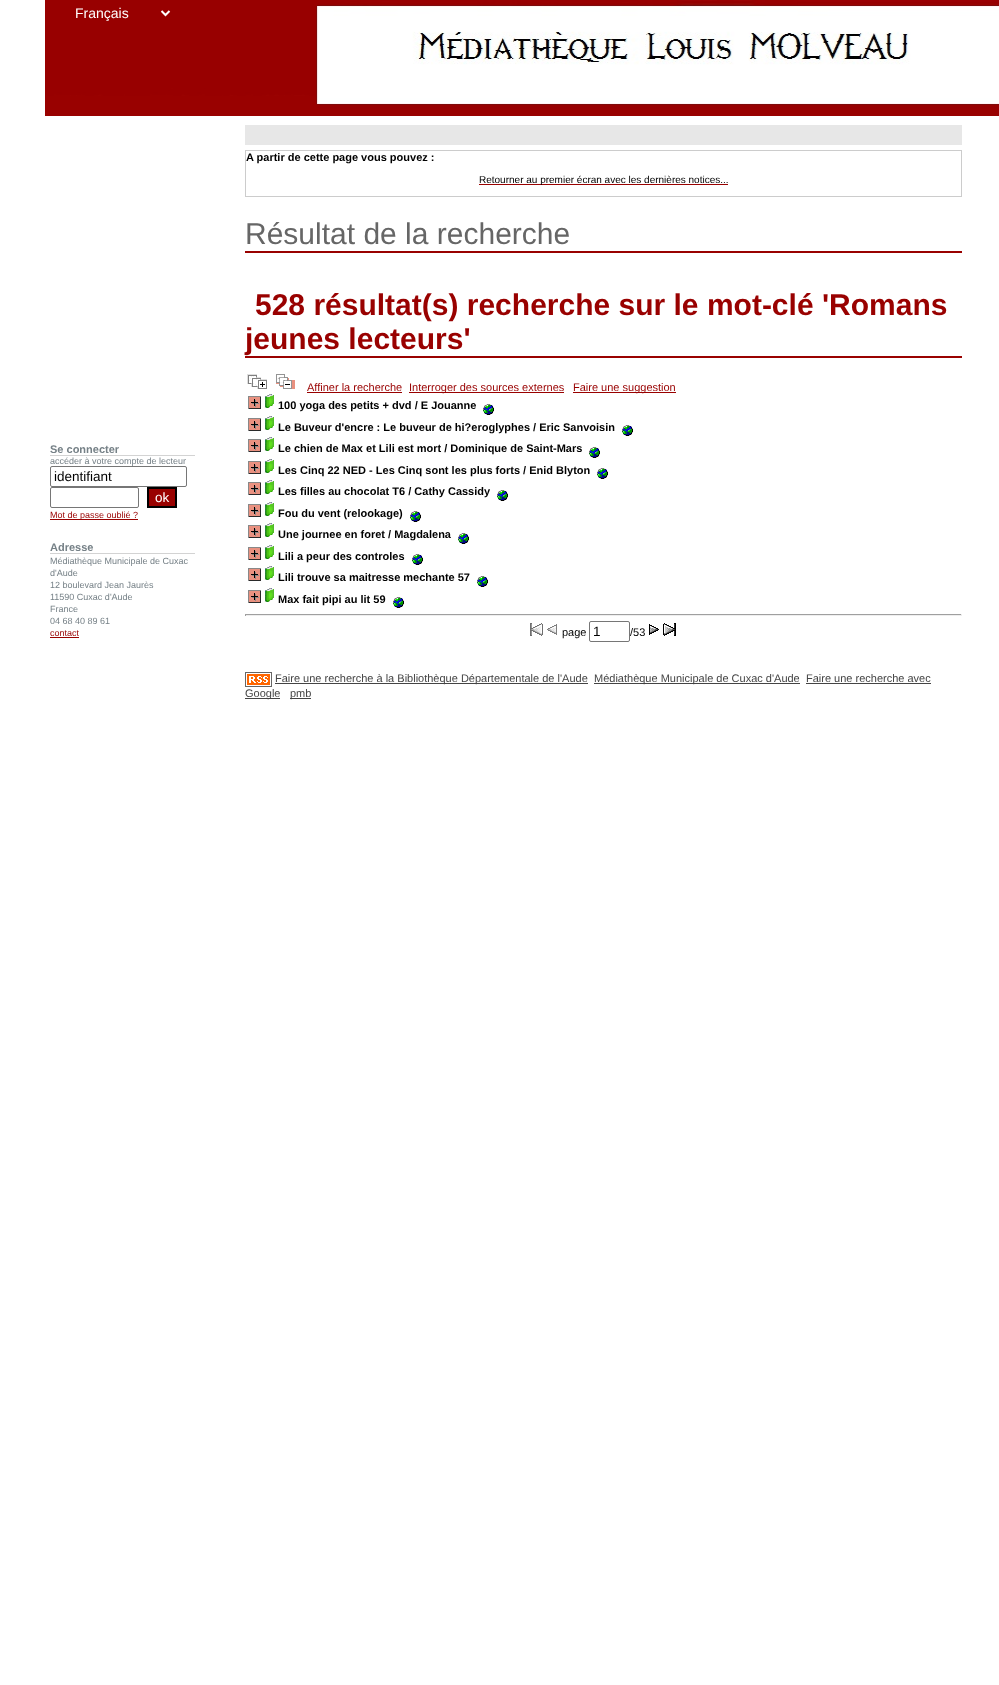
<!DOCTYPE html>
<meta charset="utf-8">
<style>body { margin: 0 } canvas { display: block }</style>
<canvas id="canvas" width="999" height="1685"></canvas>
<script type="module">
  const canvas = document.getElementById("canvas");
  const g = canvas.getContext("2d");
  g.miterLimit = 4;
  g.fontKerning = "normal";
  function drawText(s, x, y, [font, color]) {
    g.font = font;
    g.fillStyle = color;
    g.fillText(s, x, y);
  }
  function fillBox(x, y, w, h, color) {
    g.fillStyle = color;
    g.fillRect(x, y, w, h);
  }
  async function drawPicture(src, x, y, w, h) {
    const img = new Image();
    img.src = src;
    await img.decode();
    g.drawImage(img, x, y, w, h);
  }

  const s1 = ["14px Liberation Sans", "#FFFFFF"];
  const s2 = ["bold 11px Liberation Sans", "#768187"];
  const s3 = ["9px Liberation Sans", "#768187"];
  const s4 = ["13.5px Liberation Sans", "#000000"];
  const s5 = ["13.5px Liberation Sans", "#FFFFFF"];
  const s6 = ["9px Liberation Sans", "#990100"];
  const s7 = ["bold 11px Liberation Sans", "#000000"];
  const s8 = ["10px Liberation Sans", "#000000"];
  const s9 = ["30px Liberation Sans", "#666666"];
  const s10 = ["bold 30px Liberation Sans", "#990100"];
  const s11 = ["11px Liberation Sans", "#990100"];
  const s12 = ["11px Liberation Sans", "#000000"];
  const s13 = ["11px Liberation Sans", "#444444"];

  fillBox(0, 0, 999, 1685, "#FFFFFF");
  await drawPicture("pic1.png", 45, 0, 954, 116);
  g.beginPath();
  g.moveTo(161.5, 11);
  g.lineTo(165.5, 15);
  g.lineTo(169.5, 11);
  g.strokeStyle = "#FFFFFF";
  g.lineWidth = 2;
  g.stroke();
  drawText("Français", 75, 18, s1);
  fillBox(50, 455, 145, 1, "#D3D3D3");
  drawText("Se connecter", 50, 453, s2);
  drawText("accéder à votre compte de lecteur", 50, 464, s3);
  g.beginPath();
  g.roundRect(50.5, 466.5, 136, 20, 1.5);
  g.strokeStyle = "#767676";
  g.lineWidth = 1;
  g.stroke();
  drawText("identifiant", 54, 481, s4);
  g.beginPath();
  g.roundRect(50.5, 487.5, 88, 20, 1.5);
  g.stroke();
  g.fillStyle = "#990100";
  g.beginPath();
  g.rect(148, 488, 28, 19);
  g.fill();
  g.strokeStyle = "#000000";
  g.lineWidth = 2;
  g.stroke();
  drawText("ok", 155, 502, s5);
  fillBox(50, 519, 88, 1, "#990100");
  drawText("Mot de passe oublié ?", 50, 518, s6);
  fillBox(50, 553, 145, 1, "#D3D3D3");
  drawText("Adresse", 50, 551, s2);
  drawText("Médiathèque Municipale de Cuxac", 50, 564, s3);
  drawText("d'Aude", 50, 576, s3);
  drawText("12 boulevard Jean Jaurès", 50, 588, s3);
  drawText("11590 Cuxac d'Aude", 50, 600, s3);
  drawText("France", 50, 612, s3);
  drawText("04 68 40 89 61", 50, 624, s3);
  drawText("contact", 50, 636, s6);
  fillBox(50, 637, 29, 1, "#990100");
  fillBox(245, 125, 717, 20, "#E7E7E7");
  g.strokeStyle = "#CCCCCC";
  g.lineWidth = 1;
  g.strokeRect(245.5, 150.5, 716, 46);
  drawText("A partir de cette page vous pouvez :", 246, 161, s7);
  fillBox(479, 184, 249, 1, "#990100");
  drawText("Retourner au premier écran avec les dernières notices...", 479, 183, s8);
  fillBox(245, 251, 717, 2, "#990100");
  drawText("Résultat de la recherche", 245, 244, s9);
  fillBox(245, 356, 717, 2, "#990100");
  drawText("528 résultat(s) recherche sur le mot-clé 'Romans", 255, 315, s10);
  drawText("jeunes lecteurs'", 245, 349, s10);
  await drawPicture("pic2.png", 247, 374, 20, 15);
  await drawPicture("pic3.png", 276, 374, 19, 15);
  drawText("Affiner la recherche", 307, 391, s11);
  fillBox(307, 392, 95, 1, "#990100");
  fillBox(409, 392, 155, 1, "#990100");
  drawText("Interroger des sources externes", 409, 391, s11);
  fillBox(573, 392, 103, 1, "#990100");
  drawText("Faire une suggestion", 573, 391, s11);
  fillBox(249, 397, 11, 11, "#E99180");
  await drawPicture("pic4.png", 248, 396, 13, 13);
  await drawPicture("pic5.png", 264, 394, 10, 14);
  drawText("100 yoga des petits + dvd / E Jouanne", 278, 409, s7);
  await drawPicture("pic6.png", 483, 404, 11, 11);
  fillBox(249, 419, 11, 11, "#E99180");
  await drawPicture("pic4.png", 248, 418, 13, 13);
  await drawPicture("pic5.png", 264, 416, 10, 14);
  drawText("Le Buveur d'encre : Le buveur de hi?eroglyphes / Eric Sanvoisin", 278, 431, s7);
  await drawPicture("pic6.png", 622, 425, 11, 11);
  fillBox(249, 440, 11, 11, "#E99180");
  await drawPicture("pic4.png", 248, 439, 13, 13);
  await drawPicture("pic5.png", 264, 437, 10, 14);
  drawText("Le chien de Max et Lili est mort / Dominique de Saint-Mars", 278, 452, s7);
  await drawPicture("pic6.png", 589, 447, 11, 11);
  fillBox(249, 462, 11, 11, "#E99180");
  await drawPicture("pic4.png", 248, 461, 13, 13);
  await drawPicture("pic5.png", 264, 459, 10, 14);
  drawText("Les Cinq 22 NED - Les Cinq sont les plus forts / Enid Blyton", 278, 474, s7);
  await drawPicture("pic6.png", 597, 468, 11, 11);
  fillBox(249, 483, 11, 11, "#E99180");
  await drawPicture("pic4.png", 248, 482, 13, 13);
  await drawPicture("pic5.png", 264, 480, 10, 14);
  drawText("Les filles au chocolat T6 / Cathy Cassidy", 278, 495, s7);
  await drawPicture("pic6.png", 497, 490, 11, 11);
  fillBox(249, 505, 11, 11, "#E99180");
  await drawPicture("pic4.png", 248, 504, 13, 13);
  await drawPicture("pic5.png", 264, 502, 10, 14);
  drawText("Fou du vent (relookage)", 278, 517, s7);
  await drawPicture("pic6.png", 410, 511, 11, 11);
  fillBox(249, 526, 11, 11, "#E99180");
  await drawPicture("pic4.png", 248, 525, 13, 13);
  await drawPicture("pic5.png", 264, 523, 10, 14);
  drawText("Une journee en foret / Magdalena", 278, 538, s7);
  await drawPicture("pic6.png", 458, 533, 11, 11);
  fillBox(249, 548, 11, 11, "#E99180");
  await drawPicture("pic4.png", 248, 547, 13, 13);
  await drawPicture("pic5.png", 264, 545, 10, 14);
  drawText("Lili a peur des controles", 278, 560, s7);
  await drawPicture("pic6.png", 412, 554, 11, 11);
  fillBox(249, 569, 11, 11, "#E99180");
  await drawPicture("pic4.png", 248, 568, 13, 13);
  await drawPicture("pic5.png", 264, 566, 10, 14);
  drawText("Lili trouve sa maitresse mechante 57", 278, 581, s7);
  await drawPicture("pic6.png", 477, 576, 11, 11);
  fillBox(249, 591, 11, 11, "#E99180");
  await drawPicture("pic4.png", 248, 590, 13, 13);
  await drawPicture("pic5.png", 264, 588, 10, 14);
  drawText("Max fait pipi au lit 59", 278, 603, s7);
  await drawPicture("pic6.png", 393, 597, 11, 11);
  fillBox(245, 614, 717, 1, "#9F9F9F");
  fillBox(961, 614, 1, 2, "#EEEEEE");
  fillBox(245, 615, 717, 1, "#EEEEEE");
  fillBox(245, 614, 1, 2, "#9F9F9F");
  await drawPicture("pic7.png", 530, 623, 13, 13);
  await drawPicture("pic8.png", 547, 624, 10, 11);
  drawText("page", 562, 636, s12);
  g.beginPath();
  g.roundRect(589.5, 621.5, 40, 20, 1.5);
  g.strokeStyle = "#767676";
  g.stroke();
  drawText("1", 593, 636, s4);
  drawText("/53", 630, 636, s12);
  await drawPicture("pic9.png", 649, 624, 10, 11);
  await drawPicture("pic10.png", 663, 623, 13, 13);
  await drawPicture("pic11.png", 245, 672, 27, 15);
  fillBox(275, 683, 313, 1, "#444444");
  drawText("Faire une recherche à la Bibliothèque Départementale de l'Aude", 275, 682, s13);
  fillBox(594, 683, 206, 1, "#444444");
  drawText("Médiathèque Municipale de Cuxac d'Aude", 594, 682, s13);
  drawText("Faire une recherche avec", 806, 682, s13);
  fillBox(806, 683, 125, 1, "#444444");
  fillBox(245, 698, 35, 1, "#444444");
  drawText("Google", 245, 697, s13);
  fillBox(290, 698, 21, 1, "#444444");
  drawText("pmb", 290, 697, s13);
</script>
